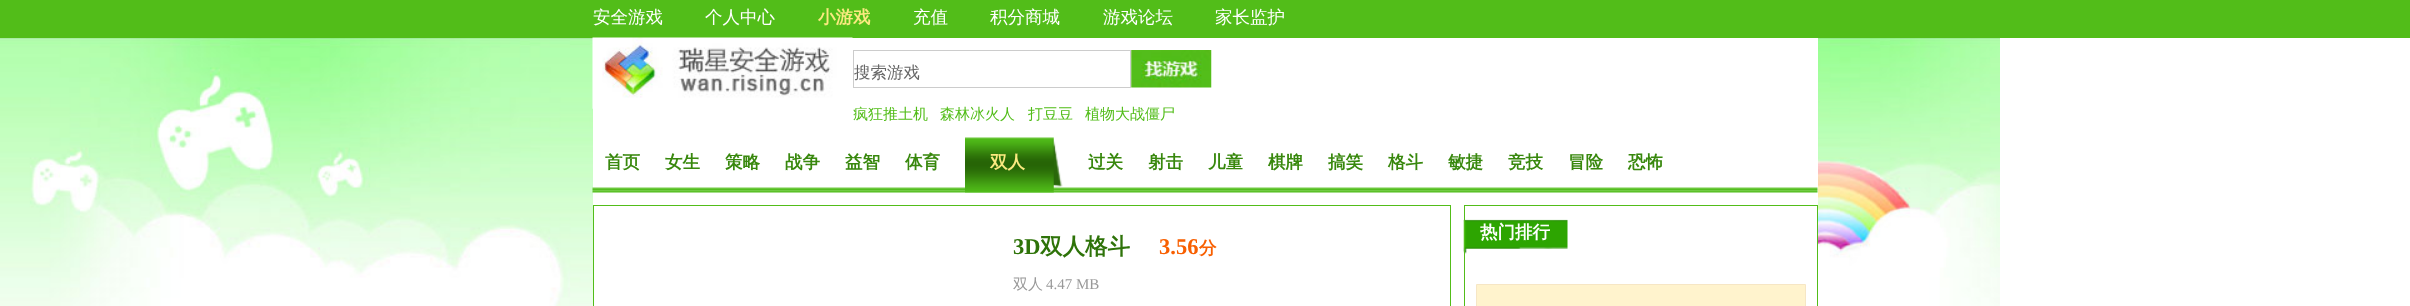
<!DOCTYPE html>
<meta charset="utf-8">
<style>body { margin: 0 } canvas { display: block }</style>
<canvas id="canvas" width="2410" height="306"></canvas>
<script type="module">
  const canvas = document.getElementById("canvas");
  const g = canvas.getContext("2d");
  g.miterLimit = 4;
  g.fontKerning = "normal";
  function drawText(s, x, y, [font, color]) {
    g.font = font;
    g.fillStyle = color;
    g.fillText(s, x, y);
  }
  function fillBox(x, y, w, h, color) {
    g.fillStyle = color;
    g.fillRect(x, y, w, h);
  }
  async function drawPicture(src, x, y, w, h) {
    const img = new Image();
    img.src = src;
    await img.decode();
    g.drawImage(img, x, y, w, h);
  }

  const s1 = ["500 17.5px WenQuanYi Zen Hei", "#FFFFFF"];
  const s2 = ["bold 17.5px WenQuanYi Zen Hei", "#FBEA80"];
  const s3 = ["500 16.5px WenQuanYi Zen Hei", "#666666"];
  const s4 = ["500 15px WenQuanYi Zen Hei", "#52BD19"];
  const s5 = ["bold 17.5px WenQuanYi Zen Hei", "#38880D"];
  const s6 = ["bold 17.5px WenQuanYi Zen Hei", "#FFFFFF"];
  const s7 = ["bold 22.5px Liberation Serif", "#2E7309"];
  const s8 = ["bold 22.5px WenQuanYi Zen Hei", "#2E7309"];
  const s9 = ["bold 22.5px Liberation Serif", "#F85F01"];
  const s10 = ["bold 17.5px WenQuanYi Zen Hei", "#F85F01"];
  const s11 = ["500 15px WenQuanYi Zen Hei", "#999999"];
  const s12 = ["15px Liberation Serif", "#999999"];

  fillBox(0, 0, 2410, 306, "#FFFFFF");
  await drawPicture("pic1.png", 0, 38, 2000, 268);
  fillBox(0, 0, 2410, 38, "#52BD19");
  drawText("安全游戏", 593, 23, s1);
  drawText("个人中心", 705, 23, s1);
  drawText("小游戏", 818, 23, s2);
  drawText("充值", 913, 23, s1);
  drawText("积分商城", 990, 23, s1);
  drawText("游戏论坛", 1103, 23, s1);
  drawText("家长监护", 1215, 23, s1);
  fillBox(593, 38, 1225, 268, "#FFFFFF");
  await drawPicture("pic2.png", 592, 37, 261, 72);
  g.strokeStyle = "#CCCCCC";
  g.strokeRect(853.5, 50.5, 277, 37);
  drawText("搜索游戏", 854, 78, s3);
  await drawPicture("pic3.png", 1131, 50, 81, 38);
  drawText("疯狂推土机", 853, 119, s4);
  drawText("森林冰火人", 940, 119, s4);
  drawText("打豆豆", 1028, 119, s4);
  drawText("植物大战僵尸", 1085, 119, s4);
  await drawPicture("pic4.png", 592, 187, 1226, 6);
  drawText("首页", 605, 168, s5);
  drawText("女生", 665, 168, s5);
  drawText("策略", 725, 168, s5);
  drawText("战争", 785, 168, s5);
  drawText("益智", 845, 168, s5);
  drawText("体育", 905, 168, s5);
  await drawPicture("pic5.png", 965, 137, 98, 56);
  drawText("双人", 990, 168, s2);
  drawText("过关", 1088, 168, s5);
  drawText("射击", 1148, 168, s5);
  drawText("儿童", 1208, 168, s5);
  drawText("棋牌", 1268, 168, s5);
  drawText("搞笑", 1328, 168, s5);
  drawText("格斗", 1388, 168, s5);
  drawText("敏捷", 1448, 168, s5);
  drawText("竞技", 1508, 168, s5);
  drawText("冒险", 1568, 168, s5);
  drawText("恐怖", 1628, 168, s5);
  await drawPicture("pic6.png", 1463, 219, 105, 35);
  g.strokeStyle = "#52BD19";
  g.strokeRect(1464.5, 205.5, 353, 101);
  drawText("热门排行", 1480, 238, s6);
  g.fillStyle = "#FFF3CD";
  g.beginPath();
  g.rect(1476.5, 284.5, 329, 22);
  g.fill();
  g.strokeStyle = "#F6E6C5";
  g.stroke();
  g.strokeStyle = "#52BD19";
  g.strokeRect(593.5, 205.5, 857, 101);
  drawText("3D", 1013, 254, s7);
  drawText("双人格斗", 1040, 254, s8);
  drawText("3.56", 1159, 254, s9);
  drawText("分", 1199, 254, s10);
  drawText("双人", 1013, 289, s11);
  drawText("4.47 MB", 1046, 289, s12);
</script>
